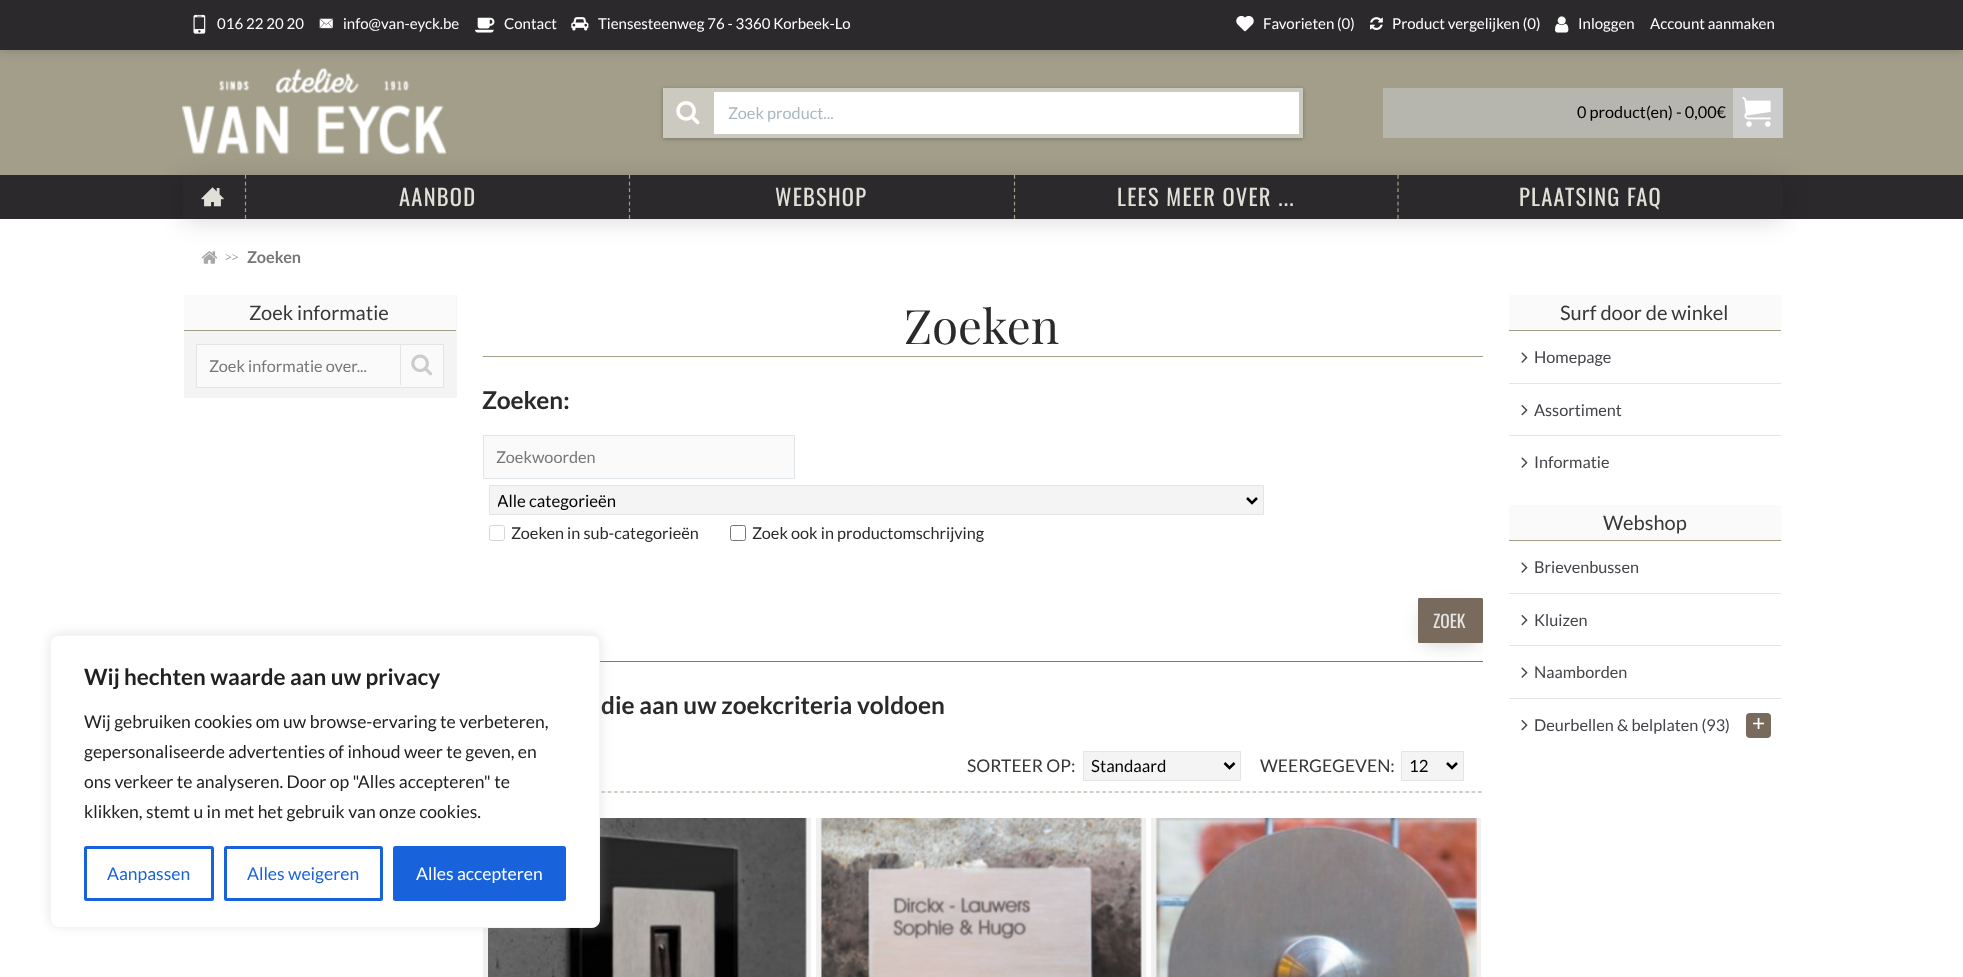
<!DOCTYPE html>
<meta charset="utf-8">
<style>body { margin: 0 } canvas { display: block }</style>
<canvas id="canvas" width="1963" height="977"></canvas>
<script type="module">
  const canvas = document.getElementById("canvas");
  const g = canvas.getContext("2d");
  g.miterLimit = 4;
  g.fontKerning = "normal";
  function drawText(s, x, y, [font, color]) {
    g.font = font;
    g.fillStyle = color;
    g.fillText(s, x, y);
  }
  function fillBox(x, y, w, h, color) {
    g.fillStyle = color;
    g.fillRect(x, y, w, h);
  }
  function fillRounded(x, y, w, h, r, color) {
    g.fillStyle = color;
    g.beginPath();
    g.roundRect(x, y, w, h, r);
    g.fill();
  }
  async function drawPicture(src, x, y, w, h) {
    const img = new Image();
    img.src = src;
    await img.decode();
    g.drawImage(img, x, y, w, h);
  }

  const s1 = ["15px Lato", "#FFFFFF"];
  const s2 = ["16.25px Lato", "#A9B8C0"];
  const s3 = ["16.25px Lato", "#000000"];
  const s4 = ["22.5px Oswald", "#E1E0D8"];
  const s5 = ["12px Liberation Serif", "#777777"];
  const s6 = ["bold 16.25px Lato", "#777777"];
  const s7 = ["20px Lato", "#383838"];
  const s8 = ["16.25px Lato", "#777777"];
  const s9 = ["47.5px Playfair Display", "#2B292B"];
  const s10 = ["bold 24.4px Lato", "#2B292B"];
  const s11 = ["16.75px Lato", "#000000"];
  const s12 = ["16.25px Lato", "#2B292B"];
  const s13 = ["17.5px Oswald", "#E4E4E4"];
  const s14 = ["17.5px Lato", "#383838"];
  const s15 = ["16.25px Lato", "#444349"];
  const s16 = ["22.5px Liberation Sans", "#FFFFFF"];
  const s17 = ["bold 22.5px Lato", "#212121"];
  const s18 = ["17.5px Lato", "#212121"];
  const s19 = ["17.5px Lato", "#1863DC"];
  const s20 = ["17.5px Lato", "#FFFFFF"];

  fillBox(0, 0, 1963, 977, "#FFFFFF");
  fillBox(0, 50, 1963, 125, "#A29E8A");
  g.fillStyle = "rgba(0, 0, 0, 0.2)";
  g.filter = "blur(6px)";
  g.beginPath();
  g.rect(0, 0, 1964, 50);
  g.fill();
  g.filter = "none";
  fillBox(0, 0, 1963, 50, "#2B292B");
  await drawPicture("pic1.png", 193, 14, 13, 20);
  drawText("016 22 20 20", 217, 29, s1);
  await drawPicture("pic2.png", 319, 18, 14, 11);
  drawText("info@van-eyck.be", 343, 29, s1);
  await drawPicture("pic3.png", 475, 17, 20, 16);
  drawText("Contact", 504, 29, s1);
  await drawPicture("pic4.png", 571, 17, 18, 14);
  drawText("Tiensesteenweg 76 - 3360 Korbeek-Lo", 598, 29, s1);
  await drawPicture("pic5.png", 1236, 15, 18, 17);
  drawText("Favorieten (0)", 1263, 29, s1);
  await drawPicture("pic6.png", 1370, 17, 13, 13);
  drawText("Product vergelijken (0)", 1392, 29, s1);
  await drawPicture("pic7.png", 1555, 16, 14, 17);
  drawText("Inloggen", 1578, 29, s1);
  drawText("Account aanmaken", 1650, 29, s1);
  await drawPicture("pic8.png", 182, 68, 264, 87);
  g.fillStyle = "rgba(0, 0, 0, 0.25)";
  g.filter = "blur(2px)";
  g.beginPath();
  g.rect(663, 89, 640, 50);
  g.fill();
  g.filter = "none";
  fillBox(714, 92, 585, 42, "#FFFFFF");
  g.strokeStyle = "#CBC9C0";
  g.lineWidth = 4;
  g.strokeRect(665, 90, 636, 46);
  g.fillStyle = "#CBC9C0";
  g.beginPath();
  g.roundRect(663, 88, 51, 50, [5, 0, 0, 5]);
  g.fill();
  await drawPicture("pic9.png", 676, 101, 24, 24);
  drawText("Zoek product...", 728, 119, s2);
  fillBox(1383, 88, 350, 50, "#B7B6AE");
  drawText("0 product(en) - 0,00€", 1577, 118, s3);
  fillBox(1733, 88, 50, 50, "#CCCCCC");
  await drawPicture("pic10.png", 1742, 97, 29, 30);
  fillBox(0, 175, 1963, 44, "#2B292B");
  await drawPicture("pic12.png", 201, 251, 17, 13);
  g.save();
  g.beginPath();
  g.moveTo(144, 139);
  g.lineTo(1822, 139);
  g.lineTo(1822, 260);
  g.lineTo(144, 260);
  g.closePath();
  g.moveTo(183, 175);
  g.lineTo(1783, 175);
  g.lineTo(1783, 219);
  g.lineTo(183, 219);
  g.closePath();
  g.clip("evenodd");
  g.fillStyle = "rgba(0, 0, 0, 0.14)";
  g.filter = "blur(12.5px)";
  g.beginPath();
  g.rect(183, 178, 1600, 43);
  g.fill();
  g.filter = "none";
  g.restore();
  await drawPicture("pic11.png", 201, 187, 23, 20);
  g.beginPath();
  g.moveTo(245.5, 175);
  g.lineTo(245.5, 219);
  g.strokeStyle = "#A29E8A";
  g.lineWidth = 1.2;
  g.setLineDash([3.75, 2.91]);
  g.stroke();
  g.letterSpacing = "1.25px";
  drawText("AANBOD", 399, 206, s4);
  g.beginPath();
  g.moveTo(629.5, 175);
  g.lineTo(629.5, 219);
  g.stroke();
  drawText("WEBSHOP", 775, 206, s4);
  g.beginPath();
  g.moveTo(1014.5, 175);
  g.lineTo(1014.5, 219);
  g.stroke();
  drawText("LEES MEER OVER ...", 1117, 206, s4);
  g.beginPath();
  g.moveTo(1398, 175);
  g.lineTo(1398, 219);
  g.stroke();
  drawText("PLAATSING FAQ", 1519, 206, s4);
  g.letterSpacing = "0px";
  drawText(">>", 225, 261, s5);
  drawText("Zoeken", 247, 263, s6);
  fillBox(184, 295, 273, 103, "#F4F4F4");
  fillBox(184, 295, 272, 35, "#FAFAFA");
  fillBox(184, 330, 272, 1, "#A29E8A");
  drawText("Zoek informatie", 249, 320, s7);
  g.fillStyle = "#FAFAFA";
  g.beginPath();
  g.rect(196.5, 344.5, 247, 43);
  g.fill();
  g.strokeStyle = "#DFE5E8";
  g.lineWidth = 1;
  g.setLineDash([]);
  g.stroke();
  drawText("Zoek informatie over...", 209, 372, s8);
  fillBox(400, 344, 1, 41, "#E4E4E4");
  await drawPicture("pic13.png", 411, 354, 21, 22);
  fillBox(483, 356, 1000, 1, "#A29E8A");
  drawText("Zoeken", 904, 344, s9);
  drawText("Zoeken:", 482, 409, s10);
  g.fillStyle = "#FAFAFA";
  g.beginPath();
  g.rect(483.5, 435.5, 311, 43);
  g.fill();
  g.stroke();
  drawText("Zoekwoorden", 496, 463, s8);
  g.fillStyle = "#F4F4F4";
  g.beginPath();
  g.rect(489.5, 485.5, 774, 29);
  g.fill();
  g.strokeStyle = "#E4E4E4";
  g.stroke();
  g.beginPath();
  g.moveTo(1247, 498);
  g.lineTo(1252, 503);
  g.lineTo(1257, 498);
  g.strokeStyle = "#000000";
  g.lineWidth = 2.5;
  g.stroke();
  g.save();
  g.beginPath();
  g.rect(498, 489, 742, 22);
  g.clip();
  drawText("Alle categorieën", 497, 507, s11);
  g.restore();
  g.beginPath();
  g.roundRect(489.5, 525.5, 15, 15, 2);
  g.strokeStyle = "#D6D6D6";
  g.lineWidth = 1;
  g.stroke();
  drawText("Zoeken in sub-categorieën", 511, 539, s12);
  g.beginPath();
  g.roundRect(730.5, 525.5, 15, 15, 2);
  g.strokeStyle = "#767676";
  g.stroke();
  drawText("Zoek ook in productomschrijving", 752, 539, s12);
  fillBox(600, 661, 883, 1, "#777777");
  g.save();
  g.beginPath();
  g.rect(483, 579, 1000, 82);
  g.clip();
  g.fillStyle = "rgba(0, 0, 0, 0.2)";
  g.filter = "blur(9.5px)";
  g.beginPath();
  g.rect(1424, 610, 52, 33);
  g.fill();
  g.filter = "none";
  g.restore();
  g.fillStyle = "#786B5D";
  g.beginPath();
  g.roundRect(1418.5, 598.5, 64, 44, 0.5);
  g.fill();
  g.strokeStyle = "#786B5D";
  g.stroke();
  drawText("ZOEK", 1433, 628, s13);
  drawText("die aan uw zoekcriteria voldoen", 601, 714, s10);
  g.beginPath();
  g.moveTo(482.5, 792);
  g.lineTo(1482.5, 792);
  g.strokeStyle = "#A29E8A";
  g.lineWidth = 1.2;
  g.setLineDash([3.75, 2.51]);
  g.stroke();
  drawText("SORTEER OP:", 967, 772, s14);
  g.fillStyle = "#F4F4F4";
  g.beginPath();
  g.rect(1083.5, 751.5, 157, 29);
  g.fill();
  g.strokeStyle = "#E4E4E4";
  g.lineWidth = 1;
  g.setLineDash([]);
  g.stroke();
  g.beginPath();
  g.moveTo(1224.5, 763);
  g.lineTo(1229.5, 768);
  g.lineTo(1234.5, 763);
  g.strokeStyle = "#000000";
  g.lineWidth = 2.5;
  g.stroke();
  drawText("Standaard", 1091, 772, s11);
  drawText("WEERGEGEVEN:", 1260, 772, s14);
  g.fillStyle = "#F4F4F4";
  g.beginPath();
  g.rect(1401.5, 751.5, 62, 29);
  g.fill();
  g.strokeStyle = "#E4E4E4";
  g.lineWidth = 1;
  g.stroke();
  g.beginPath();
  g.moveTo(1447, 763);
  g.lineTo(1452, 768);
  g.lineTo(1457, 763);
  g.strokeStyle = "#000000";
  g.lineWidth = 2.5;
  g.stroke();
  drawText("12", 1409, 772, s11);
  fillBox(806, 818, 5, 159, "#F0F0F0");
  fillBox(483, 928, 5, 49, "#F0F0F0");
  await drawPicture("pic14.png", 488, 818, 319, 159);
  fillBox(821, 818, 320, 159, "#EBEAE4");
  fillBox(1141, 818, 5, 159, "#F0F0F0");
  fillBox(816, 818, 5, 159, "#F0F0F0");
  await drawPicture("pic15.png", 820, 818, 322, 159);
  fillBox(1156, 818, 320, 159, "#EBEAE4");
  fillBox(1476, 818, 5, 159, "#F0F0F0");
  fillBox(1151, 818, 5, 159, "#F0F0F0");
  await drawPicture("pic16.png", 1155, 818, 322, 159);
  fillBox(1509, 295, 272, 35, "#FAFAFA");
  fillBox(1509, 330, 272, 1, "#A29E8A");
  drawText("Surf door de winkel", 1560, 320, s7);
  fillBox(1509, 383, 272, 1, "#E4E4E4");
  await drawPicture("pic17.png", 1521, 352, 7, 11);
  drawText("Homepage", 1534, 363, s15);
  fillBox(1509, 435, 272, 1, "#E4E4E4");
  await drawPicture("pic18.png", 1521, 405, 7, 11);
  drawText("Assortiment", 1534, 416, s15);
  await drawPicture("pic17.png", 1521, 457, 7, 11);
  drawText("Informatie", 1534, 468, s15);
  fillBox(1509, 505, 272, 35, "#FAFAFA");
  fillBox(1509, 540, 272, 1, "#A29E8A");
  drawText("Webshop", 1603, 530, s7);
  fillBox(1509, 593, 272, 1, "#E4E4E4");
  await drawPicture("pic17.png", 1521, 562, 7, 11);
  drawText("Brievenbussen", 1534, 573, s15);
  fillBox(1509, 645, 272, 1, "#E4E4E4");
  await drawPicture("pic18.png", 1521, 615, 7, 11);
  drawText("Kluizen", 1534, 626, s15);
  fillBox(1509, 698, 272, 1, "#E4E4E4");
  await drawPicture("pic17.png", 1521, 667, 7, 11);
  drawText("Naamborden", 1534, 678, s15);
  await drawPicture("pic18.png", 1521, 720, 7, 11);
  drawText("Deurbellen & belplaten (93)", 1534, 731, s15);
  fillRounded(1746, 713, 25, 25, 4, "#786B5D");
  drawText("+", 1752, 731, s16);
  g.fillStyle = "rgba(172, 171, 171, 0.3)";
  g.filter = "blur(6px)";
  g.beginPath();
  g.roundRect(50, 634, 550, 292, 8);
  g.fill();
  g.filter = "none";
  g.fillStyle = "#FFFFFF";
  g.beginPath();
  g.roundRect(50.5, 635.5, 549, 292, 7.5);
  g.fill();
  g.strokeStyle = "#F4F4F4";
  g.lineWidth = 1;
  g.stroke();
  drawText("Wij hechten waarde aan uw privacy", 84, 685, s17);
  drawText("Wij gebruiken cookies om uw browse-ervaring te verbeteren,", 84, 728, s18);
  drawText("gepersonaliseerde advertenties of inhoud weer te geven, en", 84, 758, s18);
  drawText("ons verkeer te analyseren. Door op \"Alles accepteren\" te", 84, 788, s18);
  drawText("klikken, stemt u in met het gebruik van onze cookies.", 84, 818, s18);
  g.beginPath();
  g.roundRect(85.5, 847.5, 127, 52, 1);
  g.strokeStyle = "#1863DC";
  g.lineWidth = 3;
  g.stroke();
  drawText("Aanpassen", 107, 880, s19);
  g.beginPath();
  g.roundRect(225.5, 847.5, 156, 52, 1);
  g.stroke();
  drawText("Alles weigeren", 247, 880, s19);
  g.beginPath();
  g.roundRect(394.5, 847.5, 170, 52, 1);
  g.fill();
  g.stroke();
  drawText("Alles accepteren", 416, 880, s20);
</script>
